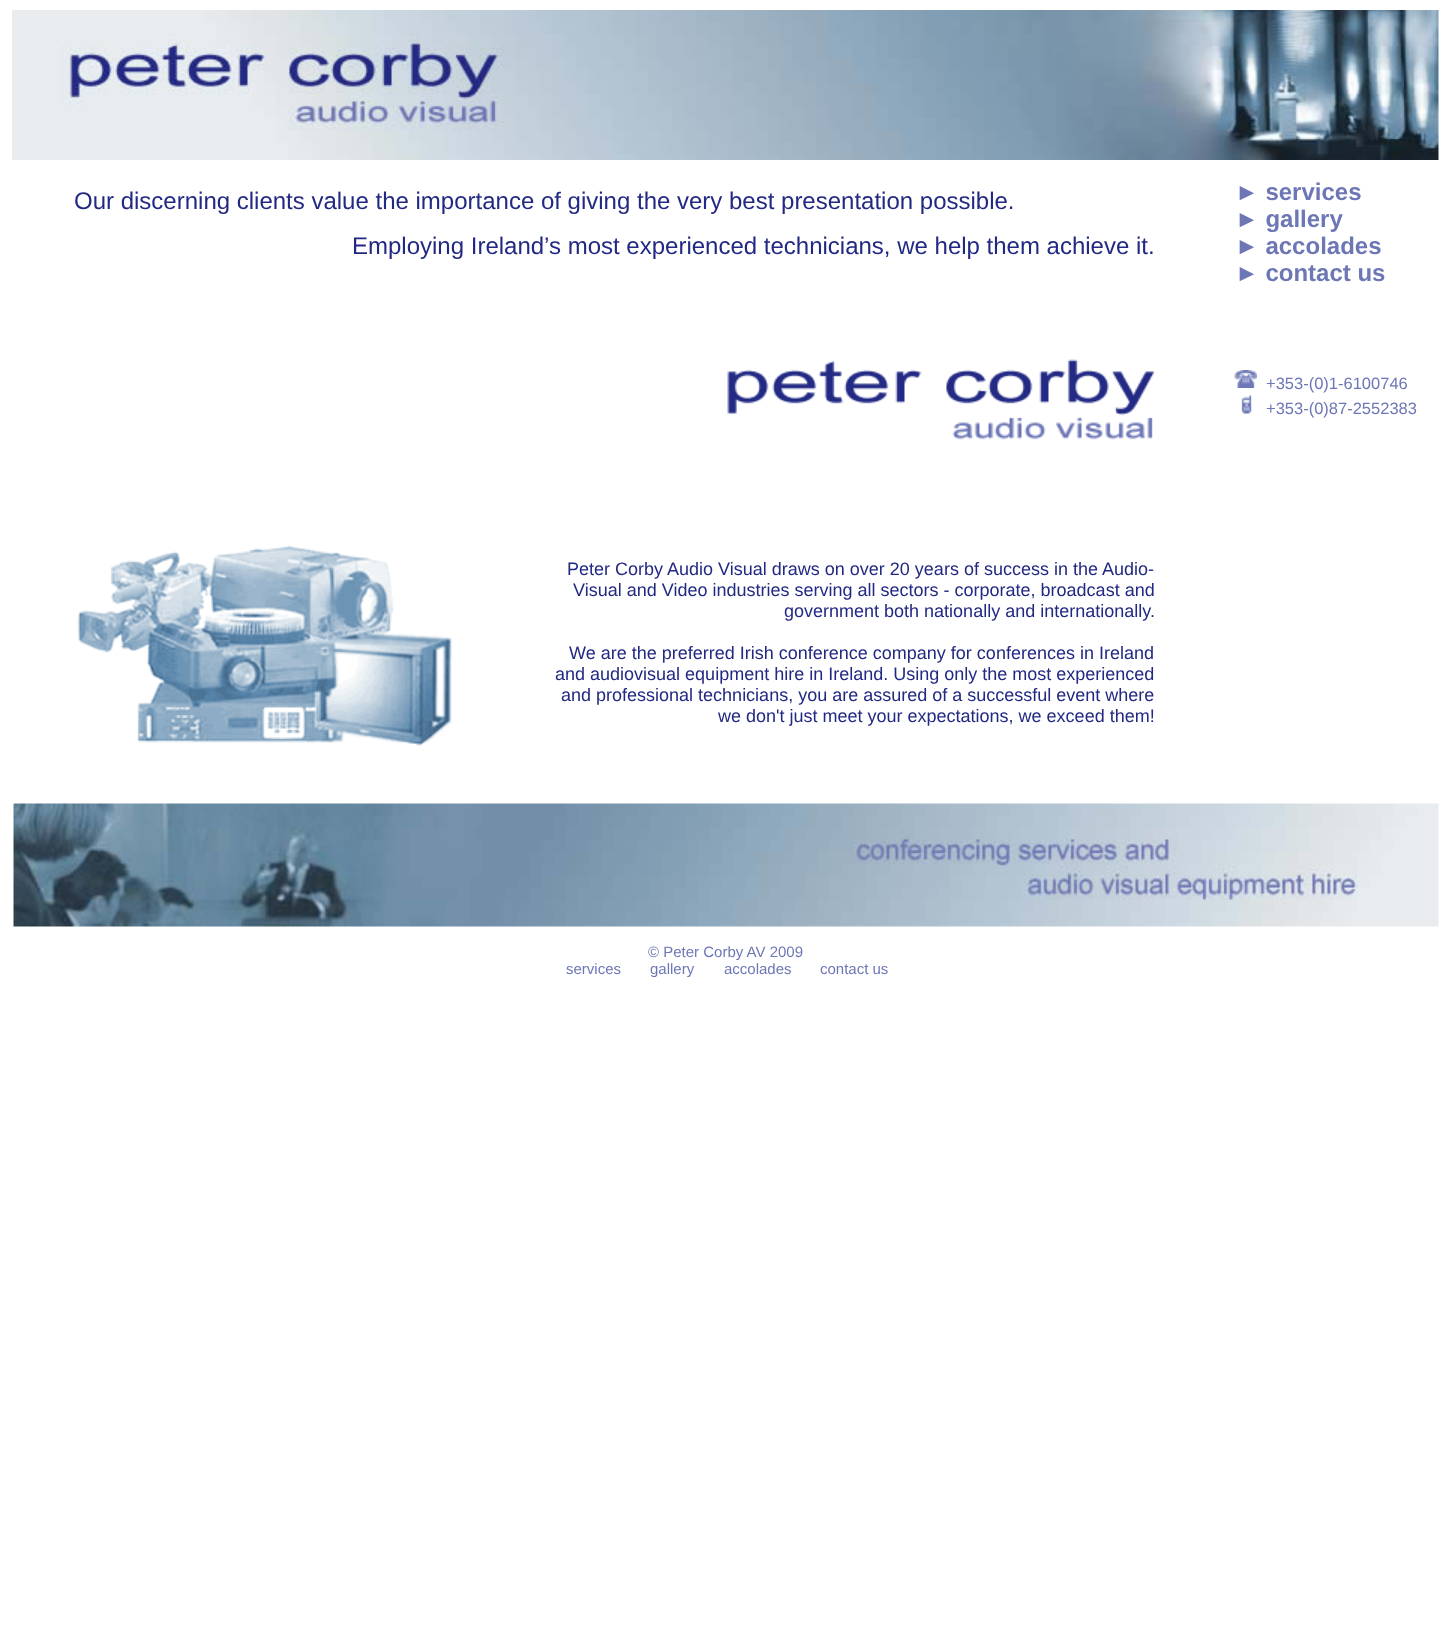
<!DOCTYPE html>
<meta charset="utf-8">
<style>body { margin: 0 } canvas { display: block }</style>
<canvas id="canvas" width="1443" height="1626"></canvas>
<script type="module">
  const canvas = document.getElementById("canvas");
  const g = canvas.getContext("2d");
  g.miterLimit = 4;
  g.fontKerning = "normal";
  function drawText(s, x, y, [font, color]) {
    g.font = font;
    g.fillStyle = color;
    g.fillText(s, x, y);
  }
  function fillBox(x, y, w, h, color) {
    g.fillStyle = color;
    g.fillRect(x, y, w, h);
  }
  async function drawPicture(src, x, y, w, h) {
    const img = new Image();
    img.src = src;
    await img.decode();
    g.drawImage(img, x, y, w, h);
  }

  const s1 = ["24px Liberation Sans", "#222983"];
  const s2 = ["18px Liberation Sans", "#222983"];
  const s3 = ["bold 24px Liberation Sans", "#6D77B6"];
  const s4 = ["16.5px Liberation Sans", "#6D77B6"];
  const s5 = ["15px Liberation Sans", "#6D77B6"];

  fillBox(0, 0, 1443, 1626, "#FFFFFF");
  await drawPicture("pic1.png", 12, 10, 1427, 150);
  drawText("Our discerning clients value the importance of giving the very best presentation possible.", 74, 209, s1);
  drawText("Employing Ireland’s most experienced technicians, we help them achieve it.", 352, 254, s1);
  await drawPicture("pic2.png", 727, 359, 428, 81);
  await drawPicture("pic3.png", 77, 545, 375, 201);
  drawText("Peter Corby Audio Visual draws on over 20 years of success in the Audio-", 567, 575, s2);
  drawText("Visual and Video industries serving all sectors - corporate, broadcast and", 573, 596, s2);
  drawText("government both nationally and internationally.", 784, 617, s2);
  drawText("We are the preferred Irish conference company for conferences in Ireland", 569, 659, s2);
  drawText("and audiovisual equipment hire in Ireland. Using only the most experienced", 555, 680, s2);
  drawText("and professional technicians, you are assured of a successful event where", 561, 701, s2);
  drawText("we don't just meet your expectations, we exceed them!", 718, 722, s2);
  drawText("► services", 1235, 200, s3);
  drawText("► gallery", 1235, 227, s3);
  drawText("► accolades", 1235, 254, s3);
  drawText("► contact us", 1235, 281, s3);
  await drawPicture("pic4.png", 1234, 370, 23, 18);
  drawText("+353-(0)1-6100746", 1266, 389, s4);
  await drawPicture("pic5.png", 1241, 395, 11, 19);
  drawText("+353-(0)87-2552383", 1266, 414, s4);
  await drawPicture("pic6.png", 13, 803, 1426, 124);
  drawText("© Peter Corby AV 2009", 648, 957, s5);
  drawText("services", 566, 974, s5);
  drawText("gallery", 650, 974, s5);
  drawText("accolades", 724, 974, s5);
  drawText("contact us", 820, 974, s5);
</script>
